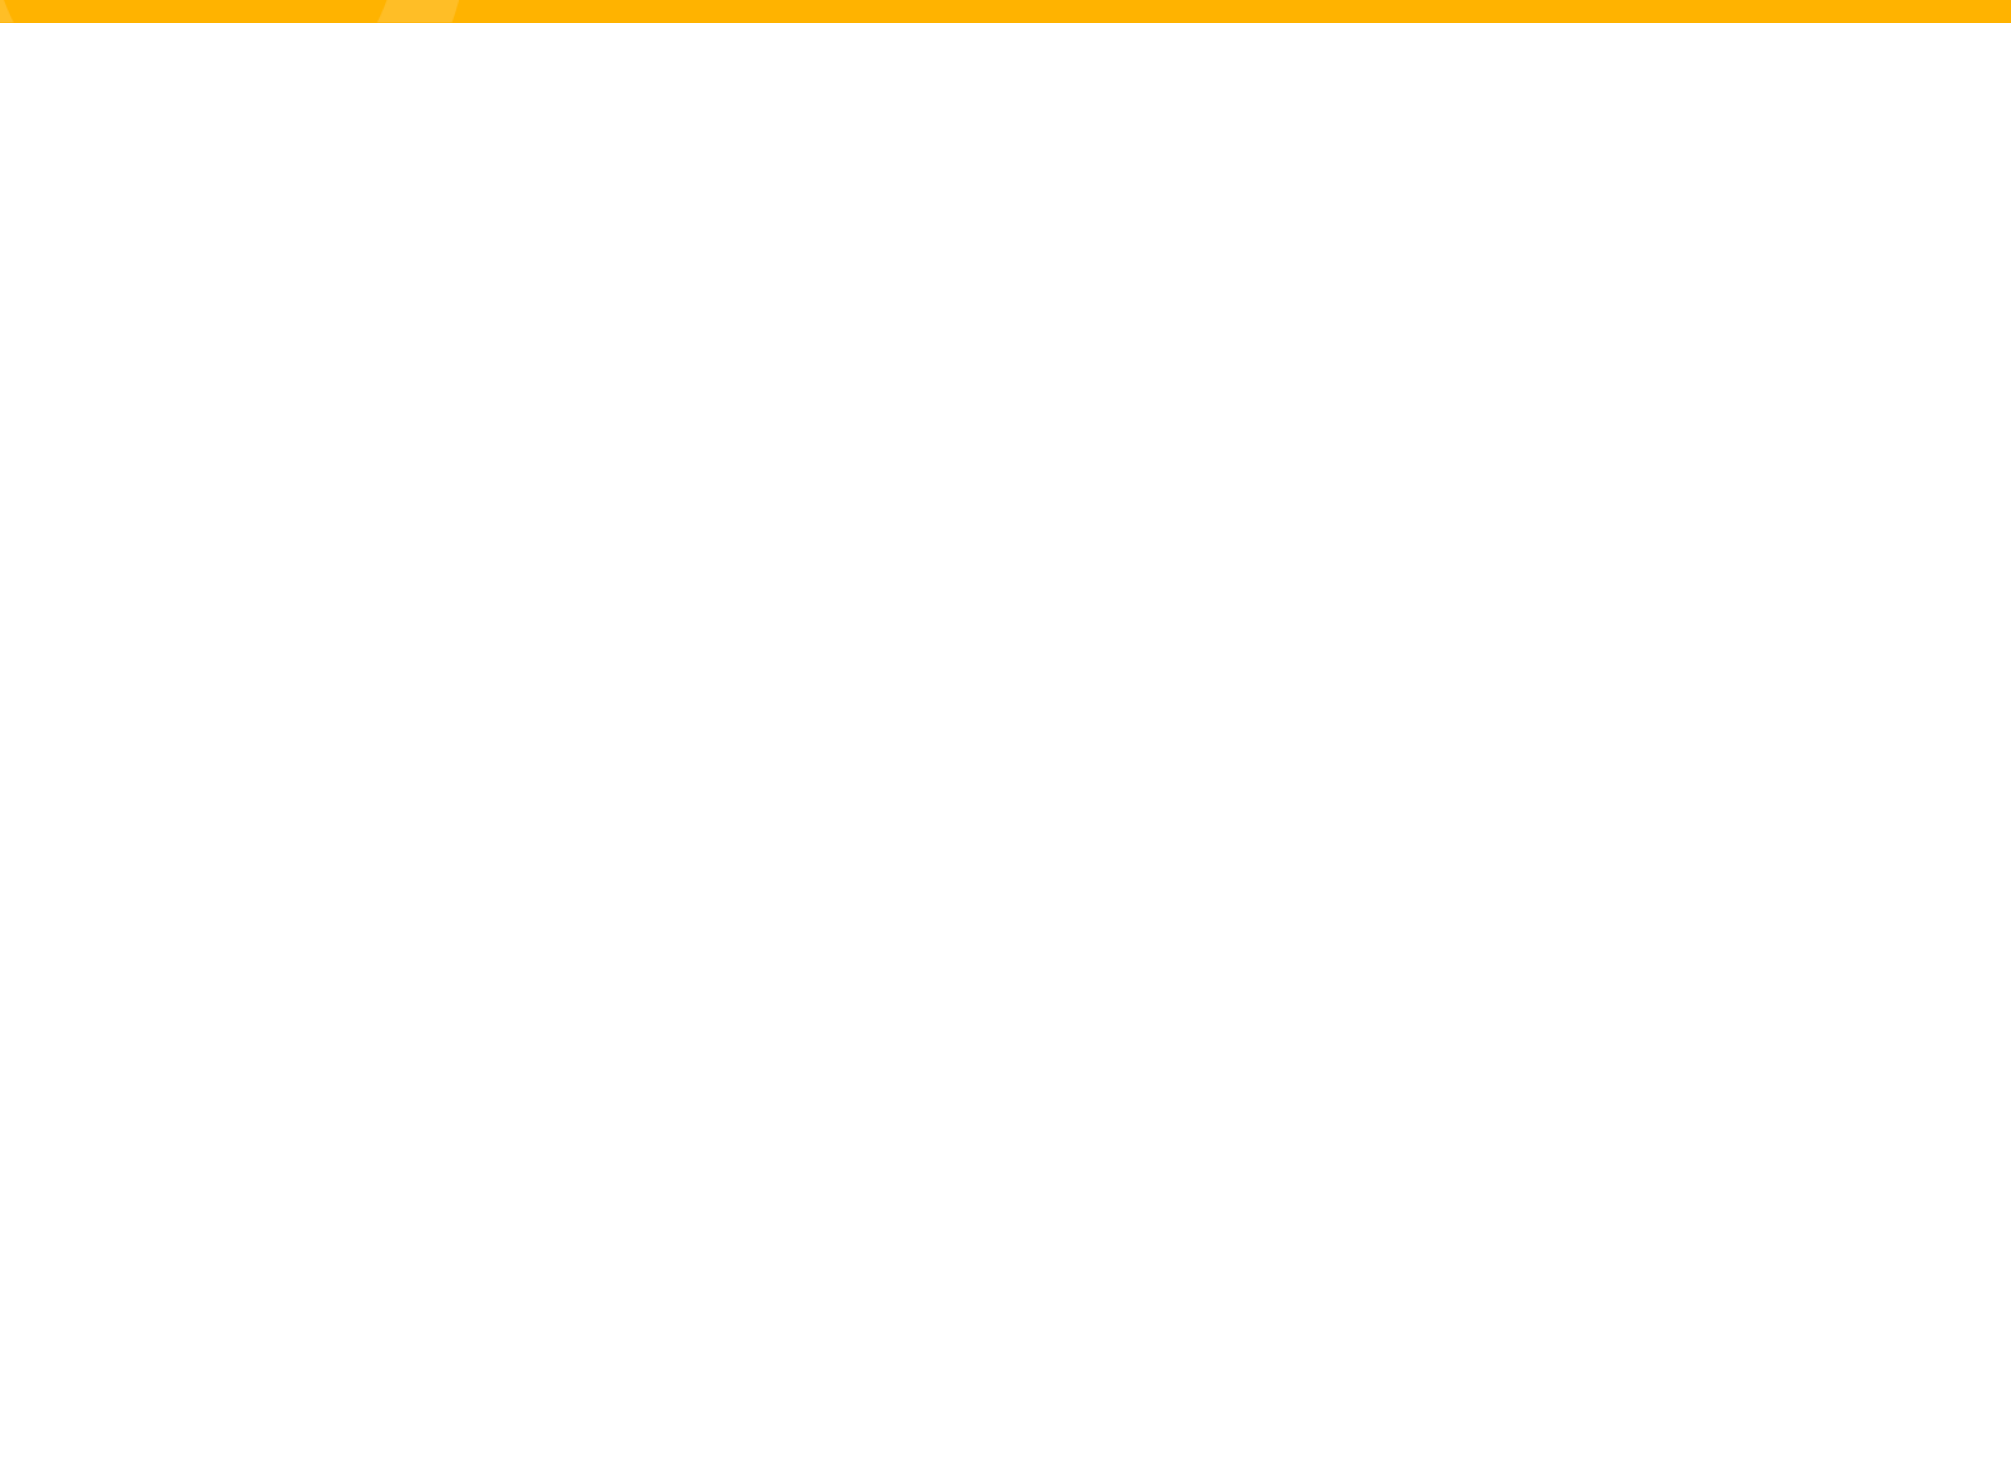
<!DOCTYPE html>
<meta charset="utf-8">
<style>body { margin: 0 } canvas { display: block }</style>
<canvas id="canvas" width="2011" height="1474"></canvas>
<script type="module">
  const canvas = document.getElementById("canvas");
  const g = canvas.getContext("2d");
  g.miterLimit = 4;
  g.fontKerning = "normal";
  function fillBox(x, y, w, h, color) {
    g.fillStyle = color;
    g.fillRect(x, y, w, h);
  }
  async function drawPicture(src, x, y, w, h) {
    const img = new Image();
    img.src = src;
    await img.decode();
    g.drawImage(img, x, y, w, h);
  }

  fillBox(0, 0, 2011, 1474, "#FFFFFF");
  fillBox(0, 0, 2011, 23, "#FFB300");
  await drawPicture("pic1.png", 0, 0, 459, 23);
</script>
